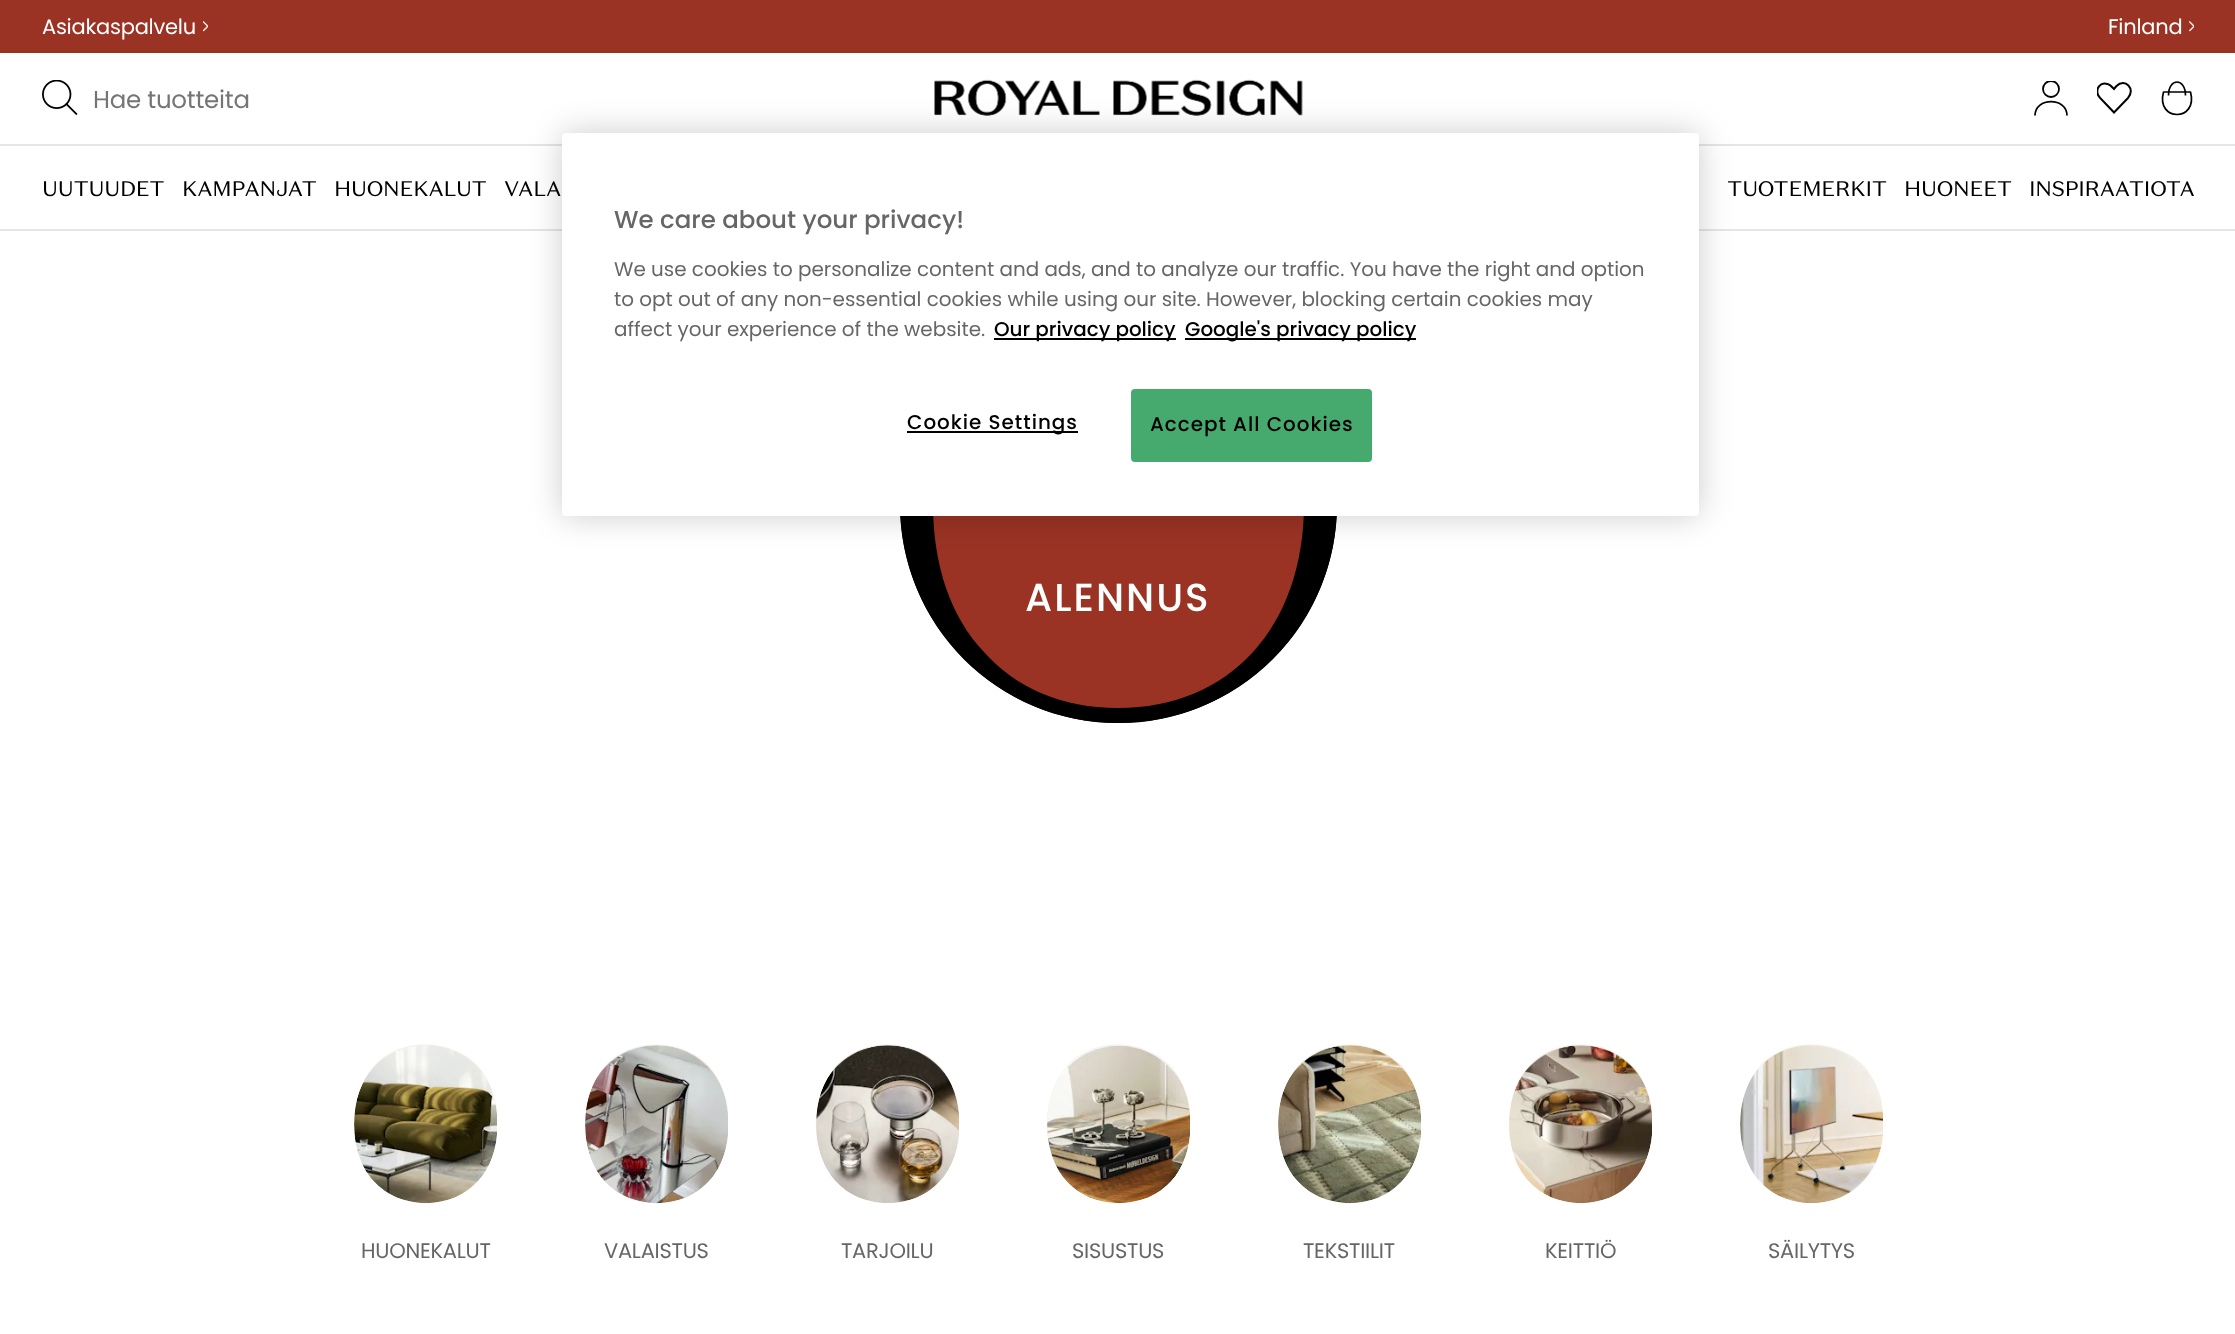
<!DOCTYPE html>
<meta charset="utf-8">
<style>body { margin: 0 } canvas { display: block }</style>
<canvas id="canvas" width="2235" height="1334"></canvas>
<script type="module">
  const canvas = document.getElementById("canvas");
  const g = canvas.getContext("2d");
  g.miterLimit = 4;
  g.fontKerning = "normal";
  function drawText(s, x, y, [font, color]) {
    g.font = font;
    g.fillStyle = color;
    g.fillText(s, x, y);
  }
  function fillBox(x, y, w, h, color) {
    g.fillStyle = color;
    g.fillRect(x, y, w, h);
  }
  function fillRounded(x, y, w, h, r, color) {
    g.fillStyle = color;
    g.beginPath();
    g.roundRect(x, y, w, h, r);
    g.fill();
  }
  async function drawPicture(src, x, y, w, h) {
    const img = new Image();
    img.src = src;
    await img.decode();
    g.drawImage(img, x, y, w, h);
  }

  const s1 = ["21px Poppins", "#FFFFFF"];
  const s2 = ["24.5px Poppins", "#757575"];
  const s3 = ["21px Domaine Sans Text", "#000000"];
  const s4 = ["500 39px Poppins", "#FFFFFF"];
  const s5 = ["21px Poppins", "#666666"];
  const s6 = ["500 24.5px Poppins", "#666666"];
  const s7 = ["19.92px Poppins", "#666666"];
  const s8 = ["500 19.92px Poppins", "#000000"];

  fillBox(0, 0, 2235, 1334, "#FFFFFF");
  fillBox(0, 0, 2235, 53, "#9A3324");
  g.letterSpacing = "-0.25px";
  drawText("Asiakaspalvelu", 42, 34, s1);
  await drawPicture("pic1.png", 203, 21, 5, 11);
  drawText("Finland", 2108, 34, s1);
  await drawPicture("pic2.png", 2189, 21, 5, 11);
  await drawPicture("pic3.png", 42, 80, 36, 35);
  drawText("Hae tuotteita", 93, 108, s2);
  await drawPicture("pic4.png", 934, 79, 369, 37);
  g.beginPath();
  g.moveTo(2035, 115.5);
  g.bezierCurveTo(2035, 97, 2067, 97, 2067, 115.5);
  g.strokeStyle = "#000000";
  g.lineWidth = 1.8;
  g.stroke();
  g.save();
  g.beginPath();
  g.rect(2034, 81, 35, 35);
  g.clip();
  g.beginPath();
  g.arc(2051, 89, 8, 0, Math.PI * 2);
  g.stroke();
  g.restore();
  g.save();
  g.beginPath();
  g.rect(2097, 82, 35, 32);
  g.clip();
  g.beginPath();
  g.moveTo(2128, 98);
  g.lineTo(2114, 112.5);
  g.lineTo(2104.5, 102.5);
  g.bezierCurveTo(2102.5, 100.5, 2099.5, 98, 2098, 95);
  g.bezierCurveTo(2095.5, 88.5, 2100.5, 81.5, 2107.5, 84);
  g.bezierCurveTo(2110, 84.5, 2112, 87, 2114, 89);
  g.lineTo(2116.5, 86);
  g.bezierCurveTo(2125, 77.5, 2136, 89, 2128, 98);
  g.closePath();
  g.lineWidth = 2;
  g.stroke();
  g.restore();
  g.beginPath();
  g.moveTo(2163.5, 92);
  g.bezierCurveTo(2155.5, 122, 2198.5, 122, 2190.5, 92);
  g.closePath();
  g.lineWidth = 1.7;
  g.lineJoin = "round";
  g.stroke();
  g.beginPath();
  g.moveTo(2168.5, 95.5);
  g.bezierCurveTo(2168.5, 77.5, 2185.5, 77.5, 2185.5, 95.5);
  g.lineJoin = "miter";
  g.stroke();
  fillBox(0, 144, 2235, 2, "#E5E5E5");
  fillBox(0, 229, 2235, 2, "#E5E5E5");
  drawText("UUTUUDET", 42, 196, s3);
  drawText("KAMPANJAT", 182, 196, s3);
  drawText("HUONEKALUT", 334, 196, s3);
  drawText("VALA", 504, 196, s3);
  drawText("TUOTEMERKIT", 1727, 196, s3);
  drawText("HUONEET", 1904, 196, s3);
  drawText("INSPIRAATIOTA", 2029, 196, s3);
  g.fillStyle = "#9A3324";
  g.beginPath();
  g.roundRect(901, 286, 435, 436, 217.5);
  g.fill();
  g.lineWidth = 2;
  g.stroke();
  g.letterSpacing = "2px";
  drawText("ALENNUS", 1025, 611, s4);
  g.fillStyle = "#000000";
  g.beginPath();
  g.moveTo(984, 652);
  g.bezierCurveTo(1016, 688, 1062, 708, 1118, 708);
  g.bezierCurveTo(1174, 708, 1220, 688, 1253, 652);
  g.bezierCurveTo(1285, 617, 1304, 566, 1304, 504);
  g.bezierCurveTo(1304, 442, 1285, 391, 1253, 356);
  g.bezierCurveTo(1220, 320, 1174, 300, 1118, 300);
  g.bezierCurveTo(1062, 300, 1016, 320, 984, 356);
  g.bezierCurveTo(951, 391, 933, 442, 933, 504);
  g.bezierCurveTo(933, 566, 951, 617, 984, 652);
  g.closePath();
  g.moveTo(1337, 504);
  g.bezierCurveTo(1337, 625, 1239, 723, 1118, 723);
  g.bezierCurveTo(997, 723, 900, 625, 900, 504);
  g.bezierCurveTo(900, 383, 997, 285, 1118, 285);
  g.bezierCurveTo(1239, 285, 1337, 383, 1337, 504);
  g.closePath();
  g.fill("evenodd");
  g.fillStyle = "#F6EFE5";
  g.beginPath();
  g.moveTo(374, 1181);
  g.bezierCurveTo(362, 1168, 356, 1150, 354, 1133);
  g.bezierCurveTo(353, 1109, 358, 1084, 374, 1066);
  g.bezierCurveTo(400, 1037, 451, 1038, 478, 1066);
  g.bezierCurveTo(489, 1079, 496, 1096, 497, 1112);
  g.lineTo(497, 1135);
  g.bezierCurveTo(493, 1178, 461, 1207, 418, 1203);
  g.bezierCurveTo(401, 1201, 385, 1194, 374, 1181);
  g.closePath();
  g.fill();
  await drawPicture("pic5.png", 354, 1045, 143, 159);
  g.letterSpacing = "-0.25px";
  drawText("HUONEKALUT", 361, 1258, s5);
  g.fillStyle = "#F6EFE5";
  g.beginPath();
  g.moveTo(605, 1181);
  g.bezierCurveTo(593, 1168, 587, 1150, 585, 1133);
  g.bezierCurveTo(584, 1109, 589, 1084, 605, 1066);
  g.bezierCurveTo(631, 1037, 682, 1038, 709, 1066);
  g.bezierCurveTo(720, 1079, 727, 1096, 728, 1112);
  g.lineTo(728, 1135);
  g.bezierCurveTo(724, 1178, 692, 1207, 649, 1203);
  g.bezierCurveTo(632, 1201, 616, 1194, 605, 1181);
  g.closePath();
  g.fill();
  await drawPicture("pic6.png", 585, 1045, 143, 159);
  drawText("VALAISTUS", 604, 1258, s5);
  g.fillStyle = "#F6EFE5";
  g.beginPath();
  g.moveTo(836, 1181);
  g.bezierCurveTo(824, 1168, 818, 1150, 816, 1133);
  g.bezierCurveTo(815, 1109, 820, 1084, 836, 1066);
  g.bezierCurveTo(862, 1037, 913, 1038, 940, 1066);
  g.bezierCurveTo(951, 1079, 958, 1096, 959, 1112);
  g.lineTo(959, 1135);
  g.bezierCurveTo(955, 1178, 923, 1207, 880, 1203);
  g.bezierCurveTo(863, 1201, 847, 1194, 836, 1181);
  g.closePath();
  g.fill();
  await drawPicture("pic7.png", 816, 1045, 143, 158);
  drawText("TARJOILU", 841, 1258, s5);
  g.fillStyle = "#F6EFE5";
  g.beginPath();
  g.moveTo(1067, 1181);
  g.bezierCurveTo(1055, 1168, 1049, 1150, 1047, 1133);
  g.bezierCurveTo(1046, 1109, 1051, 1084, 1067, 1066);
  g.bezierCurveTo(1093, 1037, 1144, 1038, 1171, 1066);
  g.bezierCurveTo(1182, 1079, 1189, 1096, 1190, 1112);
  g.lineTo(1190, 1135);
  g.bezierCurveTo(1186, 1178, 1154, 1207, 1111, 1203);
  g.bezierCurveTo(1094, 1201, 1078, 1194, 1067, 1181);
  g.closePath();
  g.fill();
  await drawPicture("pic8.png", 1047, 1045, 143, 159);
  drawText("SISUSTUS", 1072, 1258, s5);
  g.fillStyle = "#F6EFE5";
  g.beginPath();
  g.moveTo(1298, 1181);
  g.bezierCurveTo(1286, 1168, 1280, 1150, 1278, 1133);
  g.bezierCurveTo(1277, 1109, 1282, 1084, 1298, 1066);
  g.bezierCurveTo(1324, 1037, 1375, 1038, 1402, 1066);
  g.bezierCurveTo(1413, 1079, 1420, 1096, 1421, 1112);
  g.lineTo(1421, 1135);
  g.bezierCurveTo(1417, 1178, 1385, 1207, 1342, 1203);
  g.bezierCurveTo(1325, 1201, 1309, 1194, 1298, 1181);
  g.closePath();
  g.fill();
  await drawPicture("pic9.png", 1278, 1045, 143, 159);
  drawText("TEKSTIILIT", 1303, 1258, s5);
  g.fillStyle = "#F6EFE5";
  g.beginPath();
  g.moveTo(1529, 1181);
  g.bezierCurveTo(1517, 1168, 1511, 1150, 1509, 1133);
  g.bezierCurveTo(1508, 1109, 1513, 1084, 1529, 1066);
  g.bezierCurveTo(1555, 1037, 1606, 1038, 1633, 1066);
  g.bezierCurveTo(1644, 1079, 1651, 1096, 1652, 1112);
  g.lineTo(1652, 1135);
  g.bezierCurveTo(1648, 1178, 1616, 1207, 1573, 1203);
  g.bezierCurveTo(1556, 1201, 1540, 1194, 1529, 1181);
  g.closePath();
  g.fill();
  await drawPicture("pic10.png", 1509, 1045, 143, 159);
  drawText("KEITTIÖ", 1545, 1258, s5);
  g.fillStyle = "#F6EFE5";
  g.beginPath();
  g.moveTo(1760, 1181);
  g.bezierCurveTo(1748, 1168, 1742, 1150, 1740, 1133);
  g.bezierCurveTo(1739, 1109, 1744, 1084, 1760, 1066);
  g.bezierCurveTo(1786, 1037, 1837, 1038, 1864, 1066);
  g.bezierCurveTo(1875, 1079, 1882, 1096, 1883, 1112);
  g.lineTo(1883, 1135);
  g.bezierCurveTo(1879, 1178, 1847, 1207, 1804, 1203);
  g.bezierCurveTo(1787, 1201, 1771, 1194, 1760, 1181);
  g.closePath();
  g.fill();
  await drawPicture("pic11.png", 1740, 1045, 143, 159);
  drawText("SÄILYTYS", 1768, 1258, s5);
  g.fillStyle = "rgba(0, 0, 0, 0.2)";
  g.filter = "blur(16px)";
  g.beginPath();
  g.roundRect(562, 133, 1137, 383, 4);
  g.fill();
  g.filter = "none";
  fillRounded(562, 133, 1137, 383, 4, "#FFFFFF");
  g.letterSpacing = "0px";
  drawText("We care about your privacy!", 614, 228, s6);
  drawText("We use cookies to personalize content and ads, and to analyze our traffic. You have the right and option", 614, 276, s7);
  drawText("to opt out of any non-essential cookies while using our site. However, blocking certain cookies may", 614, 306, s7);
  drawText("affect your experience of the website.", 614, 336, s7);
  fillBox(994, 338, 182, 2, "#000000");
  drawText("Our privacy policy", 994, 336, s8);
  fillBox(1185, 338, 231, 2, "#000000");
  drawText("Google's privacy policy", 1185, 336, s8);
  fillBox(907, 431, 171, 2, "#000000");
  g.letterSpacing = "1px";
  drawText("Cookie Settings", 907, 429, s8);
  g.fillStyle = "#46AA6E";
  g.beginPath();
  g.roundRect(1132, 390, 239, 71, 3);
  g.fill();
  g.strokeStyle = "#46AA6E";
  g.stroke();
  drawText("Accept All Cookies", 1150, 431, s8);
</script>
